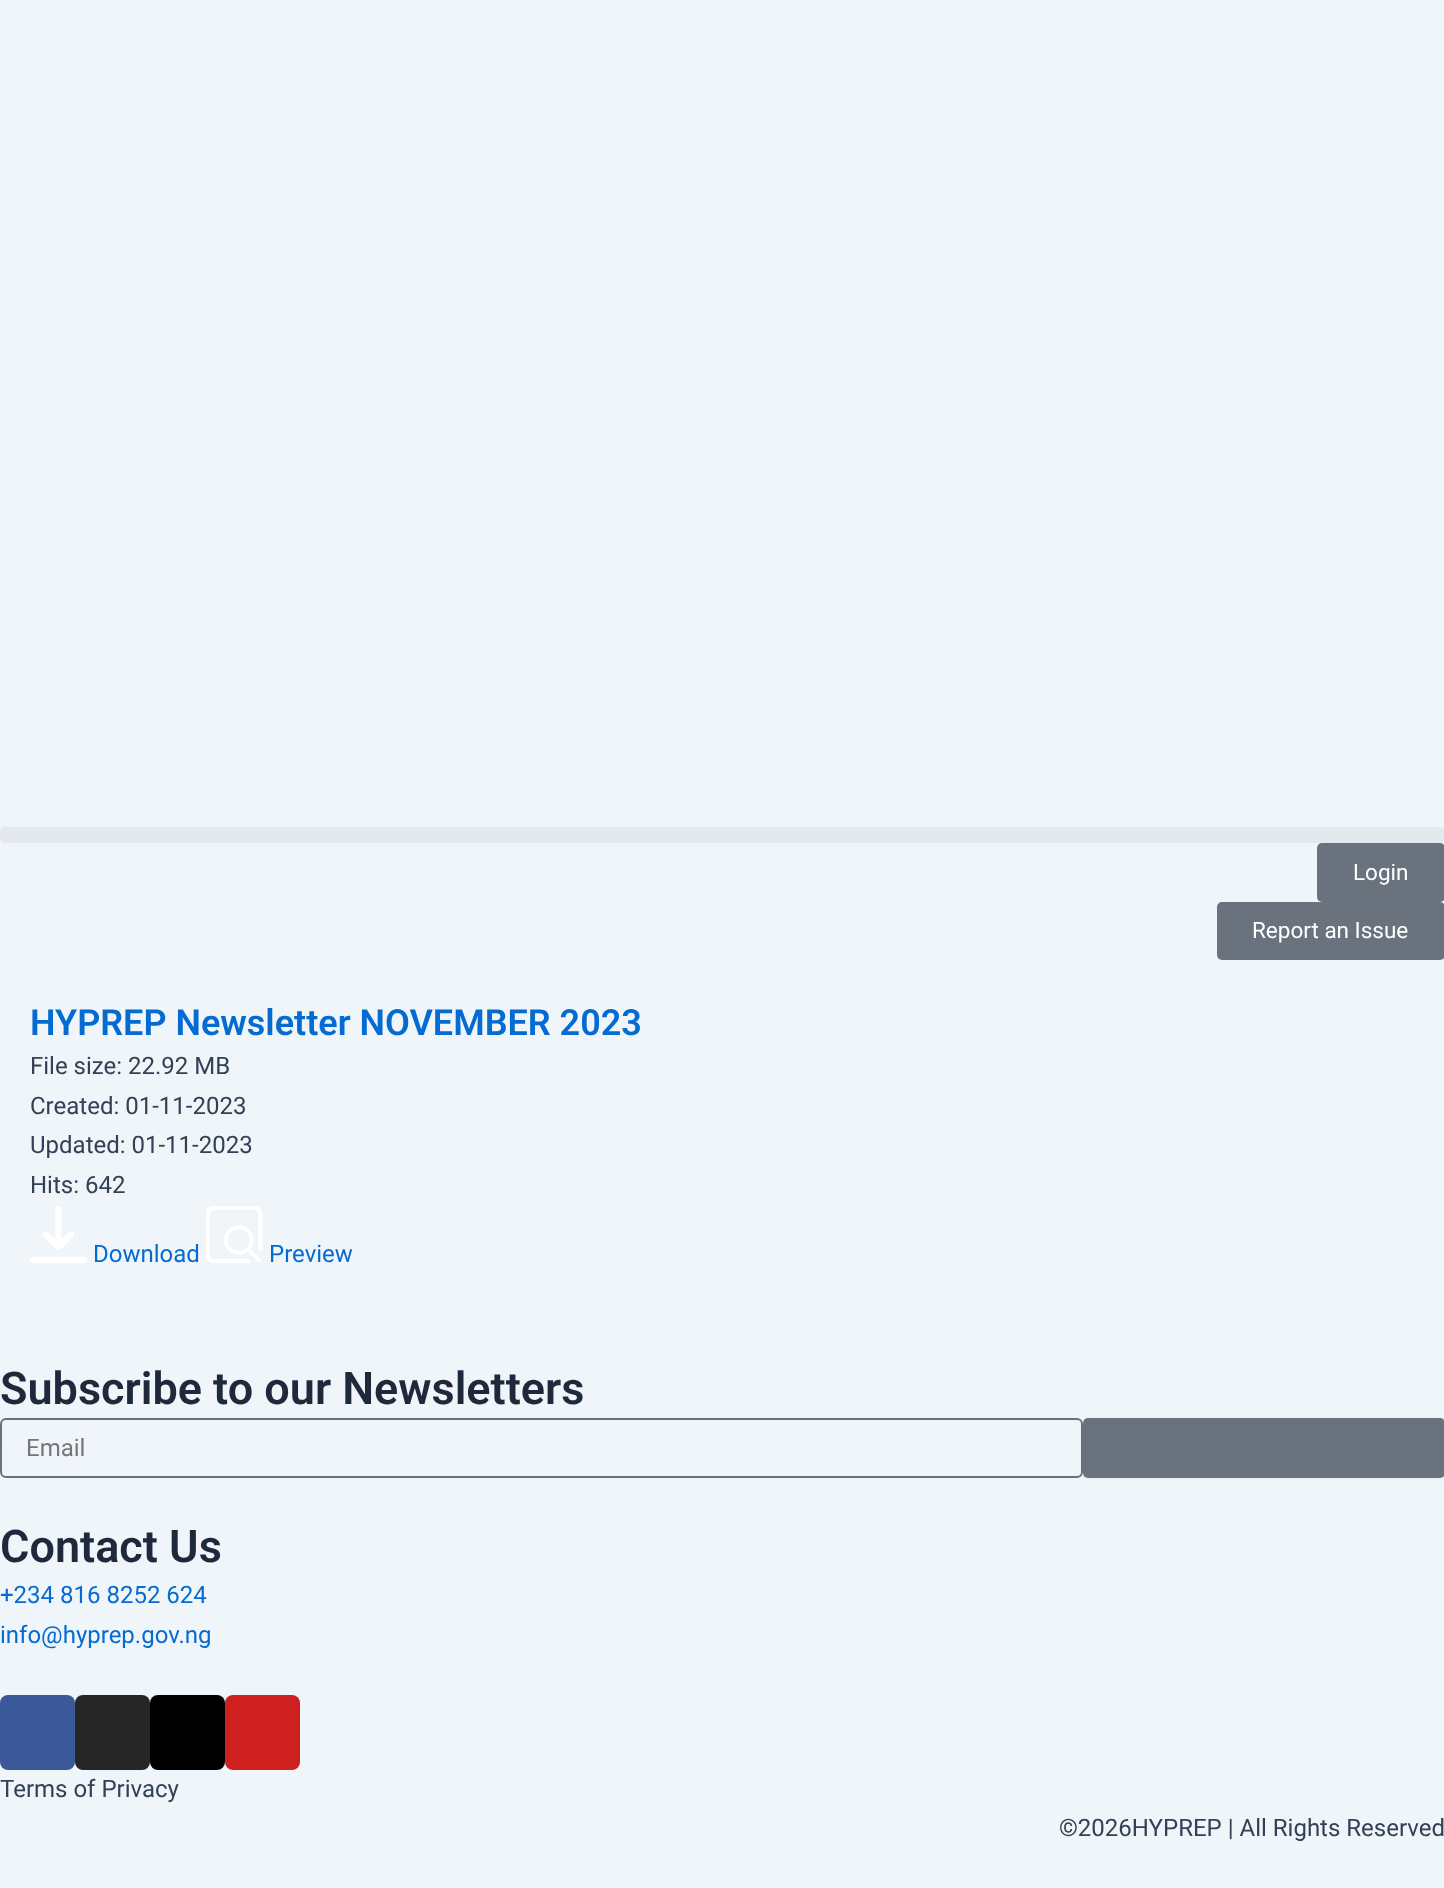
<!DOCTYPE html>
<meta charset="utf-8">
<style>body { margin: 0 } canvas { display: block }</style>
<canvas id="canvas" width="1444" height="1888"></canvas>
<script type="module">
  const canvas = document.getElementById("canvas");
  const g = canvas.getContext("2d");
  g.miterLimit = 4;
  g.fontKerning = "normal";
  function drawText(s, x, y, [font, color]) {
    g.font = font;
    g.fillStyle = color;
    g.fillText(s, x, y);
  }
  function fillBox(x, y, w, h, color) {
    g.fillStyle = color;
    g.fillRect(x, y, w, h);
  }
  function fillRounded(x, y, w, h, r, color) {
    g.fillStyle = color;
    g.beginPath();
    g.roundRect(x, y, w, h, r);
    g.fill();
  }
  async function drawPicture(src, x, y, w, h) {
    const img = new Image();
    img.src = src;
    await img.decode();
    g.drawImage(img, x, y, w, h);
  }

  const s1 = ["22.5px Roboto", "#FFFFFF"];
  const s2 = ["600 36px Roboto", "#046BD2"];
  const s3 = ["24px Roboto", "#334155"];
  const s4 = ["24px Roboto", "#046BD2"];
  const s5 = ["600 45px Roboto", "#1E293B"];
  const s6 = ["24px Roboto", "#73767A"];

  fillBox(0, 0, 1444, 1888, "#F0F5FA");
  fillRounded(0, 827, 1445, 16, 5, "#E4E9EE");
  fillRounded(1317, 843, 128, 59, 5, "#69727D");
  drawText("Login", 1353, 880, s1);
  fillRounded(1217, 902, 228, 58, 5, "#69727D");
  drawText("Report an Issue", 1252, 938, s1);
  drawText("HYPREP Newsletter NOVEMBER 2023", 30, 1035, s2);
  drawText("File size: 22.92 MB", 30, 1074, s3);
  drawText("Created: 01-11-2023", 30, 1114, s3);
  drawText("Updated: 01-11-2023", 30, 1153, s3);
  drawText("Hits: 642", 30, 1193, s3);
  await drawPicture("pic1.png", 30, 1206, 57, 57);
  drawText("Download", 93, 1262, s4);
  await drawPicture("pic2.png", 206, 1206, 57, 57);
  drawText("Preview", 269, 1262, s4);
  drawText("Subscribe to our Newsletters", 0, 1404, s5);
  g.beginPath();
  g.roundRect(1, 1419, 1081, 58, 5);
  g.strokeStyle = "#69727D";
  g.lineWidth = 2;
  g.stroke();
  drawText("Email", 26, 1456, s6);
  g.fillStyle = "rgba(0, 0, 0, 0.05)";
  g.filter = "blur(1.5px)";
  g.beginPath();
  g.roundRect(1083, 1419, 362, 60, 5);
  g.fill();
  g.filter = "none";
  fillRounded(1083, 1418, 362, 60, 5, "#69727D");
  drawText("Contact Us", 0, 1562, s5);
  drawText("+234 816 8252 624", 0, 1603, s4);
  drawText("info@hyprep.gov.ng", 0, 1643, s4);
  fillRounded(0, 1695, 75, 75, 8, "#3B5998");
  fillRounded(75, 1695, 75, 75, 8, "#262626");
  fillRounded(150, 1695, 75, 75, 8, "#000000");
  fillRounded(225, 1695, 75, 75, 8, "#CD201F");
  drawText("Terms of Privacy", 0, 1797, s3);
  drawText("©2026HYPREP | All Rights Reserved", 1059, 1836, s3);
</script>
